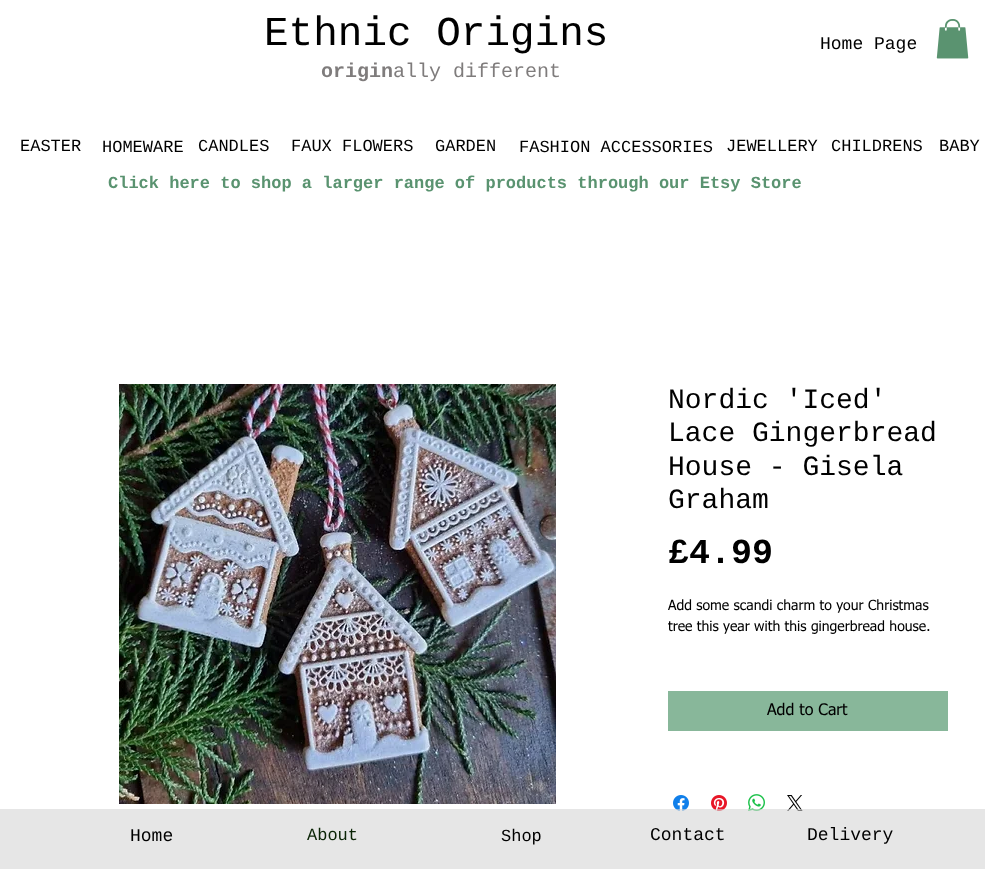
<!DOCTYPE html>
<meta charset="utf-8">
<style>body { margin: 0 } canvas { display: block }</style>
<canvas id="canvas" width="985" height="869"></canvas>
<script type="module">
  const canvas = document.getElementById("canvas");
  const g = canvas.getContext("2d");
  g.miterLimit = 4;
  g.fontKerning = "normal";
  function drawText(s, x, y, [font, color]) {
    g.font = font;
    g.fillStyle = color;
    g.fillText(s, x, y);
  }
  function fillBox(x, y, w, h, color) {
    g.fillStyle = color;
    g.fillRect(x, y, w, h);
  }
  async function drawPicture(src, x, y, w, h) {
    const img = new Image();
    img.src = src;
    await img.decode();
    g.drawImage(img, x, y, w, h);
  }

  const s1 = ["41px Liberation Mono", "#000000"];
  const s2 = ["18px Liberation Mono", "#000000"];
  const s3 = ["bold 20px Liberation Mono", "#7F7C7C"];
  const s4 = ["20px Liberation Mono", "#7F7C7C"];
  const s5 = ["17px Liberation Mono", "#000000"];
  const s6 = ["bold 17px Liberation Mono", "#5A9370"];
  const s7 = ["28px Liberation Mono", "#000000"];
  const s8 = ["bold 35px Liberation Mono", "#000000"];
  const s9 = ["14px tahoma", "#000000"];
  const s10 = ["16px tahoma", "#000000"];
  const s11 = ["17px Liberation Mono", "#0A2405"];

  fillBox(0, 0, 985, 869, "#FFFFFF");
  drawText("Ethnic Origins", 264, 45, s1);
  drawText("Home Page", 820, 49, s2);
  await drawPicture("pic1.png", 936, 19, 33, 40);
  drawText("origin", 321, 77, s3);
  drawText("ally different", 393, 77, s4);
  drawText("EASTER", 20, 151, s5);
  drawText("HOMEWARE", 102, 152, s5);
  drawText("CANDLES", 198, 151, s5);
  drawText("FAUX FLOWERS", 291, 151, s5);
  drawText("GARDEN", 435, 151, s5);
  drawText("FASHION ACCESSORIES", 519, 152, s5);
  drawText("JEWELLERY", 726, 151, s5);
  drawText("CHILDRENS", 831, 151, s5);
  drawText("BABY", 939, 151, s5);
  drawText("Click here to shop a larger range of products through our Etsy Store", 108, 188, s6);
  await drawPicture("pic2.png", 119, 384, 437, 420);
  drawText("Nordic 'Iced'", 668, 408, s7);
  drawText("Lace Gingerbread", 668, 441, s7);
  drawText("House - Gisela", 668, 475, s7);
  drawText("Graham", 668, 508, s7);
  drawText("£4.99", 668, 563, s8);
  drawText("Add some scandi charm to your Christmas", 668, 610, s9);
  drawText("tree this year with this gingerbread house.", 668, 631, s9);
  fillBox(668, 691, 280, 40, "#88B79A");
  drawText("Add to Cart", 767, 715, s10);
  await drawPicture("pic3.png", 673, 795, 16, 16);
  await drawPicture("pic4.png", 711, 795, 16, 16);
  await drawPicture("pic5.png", 748, 794, 17, 17);
  await drawPicture("pic6.png", 787, 795, 16, 16);
  fillBox(0, 809, 985, 60, "rgba(212, 212, 212, 0.59)");
  drawText("Home", 130, 841, s2);
  drawText("About", 307, 840, s11);
  drawText("Shop", 501, 841, s5);
  drawText("Contact", 650, 840, s2);
  drawText("Delivery", 807, 840, s2);
</script>
